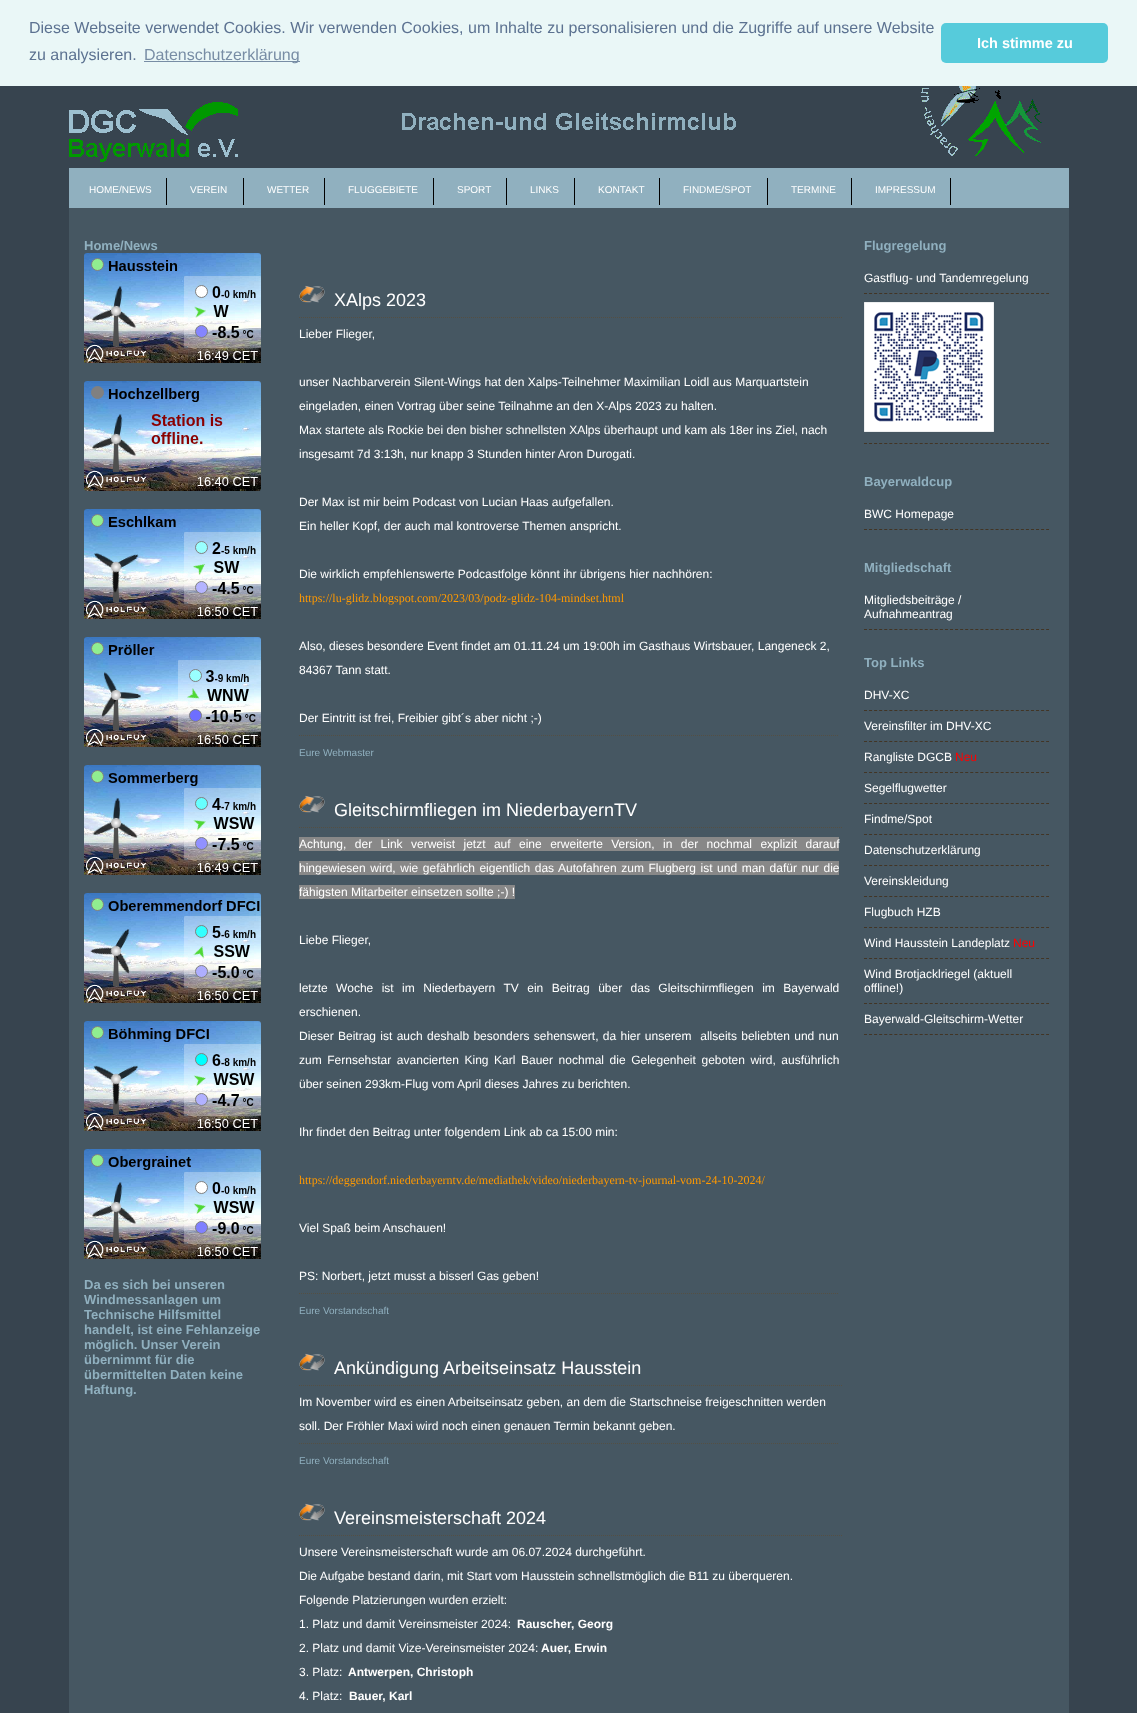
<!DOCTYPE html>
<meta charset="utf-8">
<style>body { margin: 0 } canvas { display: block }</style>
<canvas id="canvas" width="1137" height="1713"></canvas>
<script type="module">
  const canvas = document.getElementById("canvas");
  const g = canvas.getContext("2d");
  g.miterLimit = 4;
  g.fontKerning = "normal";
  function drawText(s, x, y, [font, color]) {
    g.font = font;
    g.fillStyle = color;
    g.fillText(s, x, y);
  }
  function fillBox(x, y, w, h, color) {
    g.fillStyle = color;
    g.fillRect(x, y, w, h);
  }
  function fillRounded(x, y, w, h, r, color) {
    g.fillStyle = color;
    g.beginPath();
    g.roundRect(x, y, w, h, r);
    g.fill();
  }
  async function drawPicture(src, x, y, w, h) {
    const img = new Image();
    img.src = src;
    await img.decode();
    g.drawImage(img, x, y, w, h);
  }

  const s1 = ["16px Liberation Sans", "#5C7291"];
  const s2 = ["16px Liberation Sans", "#788DA5"];
  const s3 = ["bold 14.5px Liberation Sans", "#FFFFFF"];
  const s4 = ["10px Liberation Sans", "#FFFFFF"];
  const s5 = ["bold 13px Liberation Sans", "#90B0BF"];
  const s6 = ["18px Liberation Sans", "#FFFFFF"];
  const s7 = ["12px Liberation Sans", "#FFFFFF"];
  const s8 = ["12px Liberation Serif", "#FF9900"];
  const s9 = ["10px Liberation Sans", "#90B0BF"];
  const s10 = ["bold 12px Liberation Sans", "#FFFFFF"];
  const s11 = ["12px Liberation Sans", "#FF0000"];

  fillBox(0, 0, 1137, 1713, "#37444F");
  fillBox(0, 0, 1137, 86, "#EAF7F7");
  drawText("Diese Webseite verwendet Cookies. Wir verwenden Cookies, um Inhalte zu personalisieren und die Zugriffe auf unsere Website", 29, 33, s1);
  drawText("zu analysieren.", 29, 60, s1);
  fillBox(144, 61, 156, 1, "#788DA5");
  drawText("Datenschutzerklärung", 144, 60, s2);
  fillRounded(941, 23, 167, 40, 5, "#56CBDB");
  drawText("Ich stimme zu", 977, 48, s3);
  await drawPicture("pic1.png", 69, 86, 973, 76);
  fillBox(69, 168, 1000, 40, "#90B0BF");
  fillBox(166, 178, 1, 27, "#000000");
  drawText("HOME/NEWS", 89, 193, s4);
  fillBox(243, 178, 1, 27, "#000000");
  drawText("VEREIN", 190, 193, s4);
  fillBox(324, 178, 1, 27, "#000000");
  drawText("WETTER", 267, 193, s4);
  fillBox(433, 178, 1, 27, "#000000");
  drawText("FLUGGEBIETE", 348, 193, s4);
  fillBox(506, 178, 1, 27, "#000000");
  drawText("SPORT", 457, 193, s4);
  fillBox(574, 178, 1, 27, "#000000");
  drawText("LINKS", 530, 193, s4);
  fillBox(659, 178, 1, 27, "#000000");
  drawText("KONTAKT", 598, 193, s4);
  fillBox(767, 178, 1, 27, "#000000");
  drawText("FINDME/SPOT", 683, 193, s4);
  fillBox(851, 178, 1, 27, "#000000");
  drawText("TERMINE", 791, 193, s4);
  fillBox(950, 178, 1, 27, "#000000");
  drawText("IMPRESSUM", 875, 193, s4);
  fillBox(69, 208, 1000, 1505, "#465762");
  drawText("Home/News", 84, 250, s5);
  await drawPicture("pic2.png", 84, 253, 177, 110);
  await drawPicture("pic3.png", 84, 381, 177, 110);
  await drawPicture("pic4.png", 84, 509, 177, 110);
  await drawPicture("pic5.png", 84, 637, 177, 110);
  await drawPicture("pic6.png", 84, 765, 177, 110);
  await drawPicture("pic7.png", 84, 893, 177, 110);
  await drawPicture("pic8.png", 84, 1021, 177, 110);
  await drawPicture("pic9.png", 84, 1149, 177, 110);
  drawText("Da es sich bei unseren", 84, 1289, s5);
  drawText("Windmessanlagen um", 84, 1304, s5);
  drawText("Technische Hilfsmittel", 84, 1319, s5);
  drawText("handelt, ist eine Fehlanzeige", 84, 1334, s5);
  drawText("möglich. Unser Verein", 84, 1349, s5);
  drawText("übernimmt für die", 84, 1364, s5);
  drawText("übermittelten Daten keine", 84, 1379, s5);
  drawText("Haftung.", 84, 1394, s5);
  await drawPicture("pic10.png", 299, 285, 26, 18);
  g.beginPath();
  g.moveTo(299, 317.5);
  g.lineTo(842, 317.5);
  g.strokeStyle = "#544F43";
  g.setLineDash([1, 1]);
  g.stroke();
  drawText("XAlps 2023", 334, 306, s6);
  drawText("Lieber Flieger,", 299, 338, s7);
  drawText("unser Nachbarverein Silent-Wings hat den Xalps-Teilnehmer Maximilian Loidl aus Marquartstein", 299, 386, s7);
  drawText("eingeladen, einen Vortrag über seine Teilnahme an den X-Alps 2023 zu halten.", 299, 410, s7);
  drawText("Max startete als Rockie bei den bisher schnellsten XAlps überhaupt und kam als 18er ins Ziel, nach", 299, 434, s7);
  drawText("insgesamt 7d 3:13h, nur knapp 3 Stunden hinter Aron Durogati.", 299, 458, s7);
  drawText("Der Max ist mir beim Podcast von Lucian Haas aufgefallen.", 299, 506, s7);
  drawText("Ein heller Kopf, der auch mal kontroverse Themen anspricht.", 299, 530, s7);
  drawText("Die wirklich empfehlenswerte Podcastfolge könnt ihr übrigens hier nachhören:", 299, 578, s7);
  drawText("https://lu-glidz.blogspot.com/2023/03/podz-glidz-104-mindset.html", 299, 602, s8);
  drawText("Also, dieses besondere Event findet am 01.11.24 um 19:00h im Gasthaus Wirtsbauer, Langeneck 2,", 299, 650, s7);
  drawText("84367 Tann statt.", 299, 674, s7);
  drawText("Der Eintritt ist frei, Freibier gibt´s aber nicht ;-)", 299, 722, s7);
  g.beginPath();
  g.moveTo(299, 735.5);
  g.lineTo(839, 735.5);
  g.stroke();
  drawText("Eure Webmaster", 299, 756, s9);
  await drawPicture("pic10.png", 299, 795, 26, 18);
  g.beginPath();
  g.moveTo(299, 827.5);
  g.lineTo(842, 827.5);
  g.stroke();
  drawText("Gleitschirmfliegen im NiederbayernTV", 334, 816, s6);
  fillBox(299, 837, 540, 14, "#888888");
  g.wordSpacing = "5.1px";
  drawText("Achtung, der Link verweist jetzt auf eine erweiterte Version, in der nochmal explizit darauf", 299, 848, s7);
  fillBox(299, 861, 540, 14, "#888888");
  g.wordSpacing = "1.25px";
  drawText("hingewiesen wird, wie gefährlich eigentlich das Autofahren zum Flugberg ist und man dafür nur die", 299, 872, s7);
  fillBox(299, 885, 216, 14, "#888888");
  g.wordSpacing = "0px";
  drawText("fähigsten Mitarbeiter einsetzen sollte ;-) !", 299, 896, s7);
  drawText("Liebe Flieger,", 299, 944, s7);
  g.wordSpacing = "5.1px";
  drawText("letzte Woche ist im Niederbayern TV ein Beitrag über das Gleitschirmfliegen im Bayerwald", 299, 992, s7);
  g.wordSpacing = "0px";
  drawText("erschienen.", 299, 1016, s7);
  g.wordSpacing = "1px";
  drawText("Dieser Beitrag ist auch deshalb besonders sehenswert, da hier unserem  allseits beliebten und nun", 299, 1040, s7);
  g.wordSpacing = "2.25px";
  drawText("zum Fernsehstar avancierten King Karl Bauer nochmal die Gelegenheit geboten wird, ausführlich", 299, 1064, s7);
  g.wordSpacing = "0px";
  drawText("über seinen 293km-Flug vom April dieses Jahres zu berichten.", 299, 1088, s7);
  drawText("Ihr findet den Beitrag unter folgendem Link ab ca 15:00 min:", 299, 1136, s7);
  drawText("https://deggendorf.niederbayerntv.de/mediathek/video/niederbayern-tv-journal-vom-24-10-2024/", 299, 1184, s8);
  drawText("Viel Spaß beim Anschauen!", 299, 1232, s7);
  drawText("PS: Norbert, jetzt musst a bisserl Gas geben!", 299, 1280, s7);
  g.beginPath();
  g.moveTo(299, 1293.5);
  g.lineTo(839, 1293.5);
  g.stroke();
  drawText("Eure Vorstandschaft", 299, 1314, s9);
  await drawPicture("pic10.png", 299, 1353, 26, 18);
  g.beginPath();
  g.moveTo(299, 1385.5);
  g.lineTo(842, 1385.5);
  g.stroke();
  drawText("Ankündigung Arbeitseinsatz Hausstein", 334, 1374, s6);
  drawText("Im November wird es einen Arbeitseinsatz geben, an dem die Startschneise freigeschnitten werden", 299, 1406, s7);
  drawText("soll. Der Fröhler Maxi wird noch einen genauen Termin bekannt geben.", 299, 1430, s7);
  g.beginPath();
  g.moveTo(299, 1443.5);
  g.lineTo(839, 1443.5);
  g.stroke();
  drawText("Eure Vorstandschaft", 299, 1464, s9);
  await drawPicture("pic10.png", 299, 1503, 26, 18);
  g.beginPath();
  g.moveTo(299, 1535.5);
  g.lineTo(842, 1535.5);
  g.stroke();
  drawText("Vereinsmeisterschaft 2024", 334, 1524, s6);
  drawText("Unsere Vereinsmeisterschaft wurde am 06.07.2024 durchgeführt.", 299, 1556, s7);
  drawText("Die Aufgabe bestand darin, mit Start vom Hausstein schnellstmöglich die B11 zu überqueren.", 299, 1580, s7);
  drawText("Folgende Platzierungen wurden erzielt:", 299, 1604, s7);
  drawText("1. Platz und damit Vereinsmeister 2024:", 299, 1628, s7);
  drawText("Rauscher, Georg", 517, 1628, s10);
  drawText("2. Platz und damit Vize-Vereinsmeister 2024:", 299, 1652, s7);
  drawText("Auer, Erwin", 541, 1652, s10);
  drawText("3. Platz:", 299, 1676, s7);
  drawText("Antwerpen, Christoph", 348, 1676, s10);
  drawText("4. Platz:", 299, 1700, s7);
  drawText("Bauer, Karl", 349, 1700, s10);
  drawText("Flugregelung", 864, 250, s5);
  g.beginPath();
  g.moveTo(864, 293.5);
  g.lineTo(1049, 293.5);
  g.strokeStyle = "#423525";
  g.setLineDash([3, 2.06]);
  g.stroke();
  drawText("Gastflug- und Tandemregelung", 864, 282, s7);
  g.beginPath();
  g.moveTo(864, 443.5);
  g.lineTo(1049, 443.5);
  g.stroke();
  await drawPicture("pic11.png", 864, 302, 130, 130);
  drawText("Bayerwaldcup", 864, 486, s5);
  g.beginPath();
  g.moveTo(864, 529.5);
  g.lineTo(1049, 529.5);
  g.stroke();
  drawText("BWC Homepage", 864, 518, s7);
  drawText("Mitgliedschaft", 864, 572, s5);
  g.beginPath();
  g.moveTo(864, 629.5);
  g.lineTo(1049, 629.5);
  g.stroke();
  drawText("Mitgliedsbeiträge /", 864, 604, s7);
  drawText("Aufnahmeantrag", 864, 618, s7);
  drawText("Top Links", 864, 667, s5);
  g.beginPath();
  g.moveTo(864, 710.5);
  g.lineTo(1049, 710.5);
  g.stroke();
  drawText("DHV-XC", 864, 699, s7);
  g.beginPath();
  g.moveTo(864, 741.5);
  g.lineTo(1049, 741.5);
  g.stroke();
  drawText("Vereinsfilter im DHV-XC", 864, 730, s7);
  g.beginPath();
  g.moveTo(864, 772.5);
  g.lineTo(1049, 772.5);
  g.stroke();
  drawText("Rangliste DGCB", 864, 761, s7);
  drawText("Neu", 955, 761, s11);
  g.beginPath();
  g.moveTo(864, 803.5);
  g.lineTo(1049, 803.5);
  g.stroke();
  drawText("Segelflugwetter", 864, 792, s7);
  g.beginPath();
  g.moveTo(864, 834.5);
  g.lineTo(1049, 834.5);
  g.stroke();
  drawText("Findme/Spot", 864, 823, s7);
  g.beginPath();
  g.moveTo(864, 865.5);
  g.lineTo(1049, 865.5);
  g.stroke();
  drawText("Datenschutzerklärung", 864, 854, s7);
  g.beginPath();
  g.moveTo(864, 896.5);
  g.lineTo(1049, 896.5);
  g.stroke();
  drawText("Vereinskleidung", 864, 885, s7);
  g.beginPath();
  g.moveTo(864, 927.5);
  g.lineTo(1049, 927.5);
  g.stroke();
  drawText("Flugbuch HZB", 864, 916, s7);
  g.beginPath();
  g.moveTo(864, 958.5);
  g.lineTo(1049, 958.5);
  g.stroke();
  drawText("Wind Hausstein Landeplatz", 864, 947, s7);
  drawText("Neu", 1013, 947, s11);
  g.beginPath();
  g.moveTo(864, 1003.5);
  g.lineTo(1049, 1003.5);
  g.stroke();
  drawText("Wind Brotjacklriegel (aktuell", 864, 978, s7);
  drawText("offline!)", 864, 992, s7);
  g.beginPath();
  g.moveTo(864, 1034.5);
  g.lineTo(1049, 1034.5);
  g.stroke();
  drawText("Bayerwald-Gleitschirm-Wetter", 864, 1023, s7);
</script>
